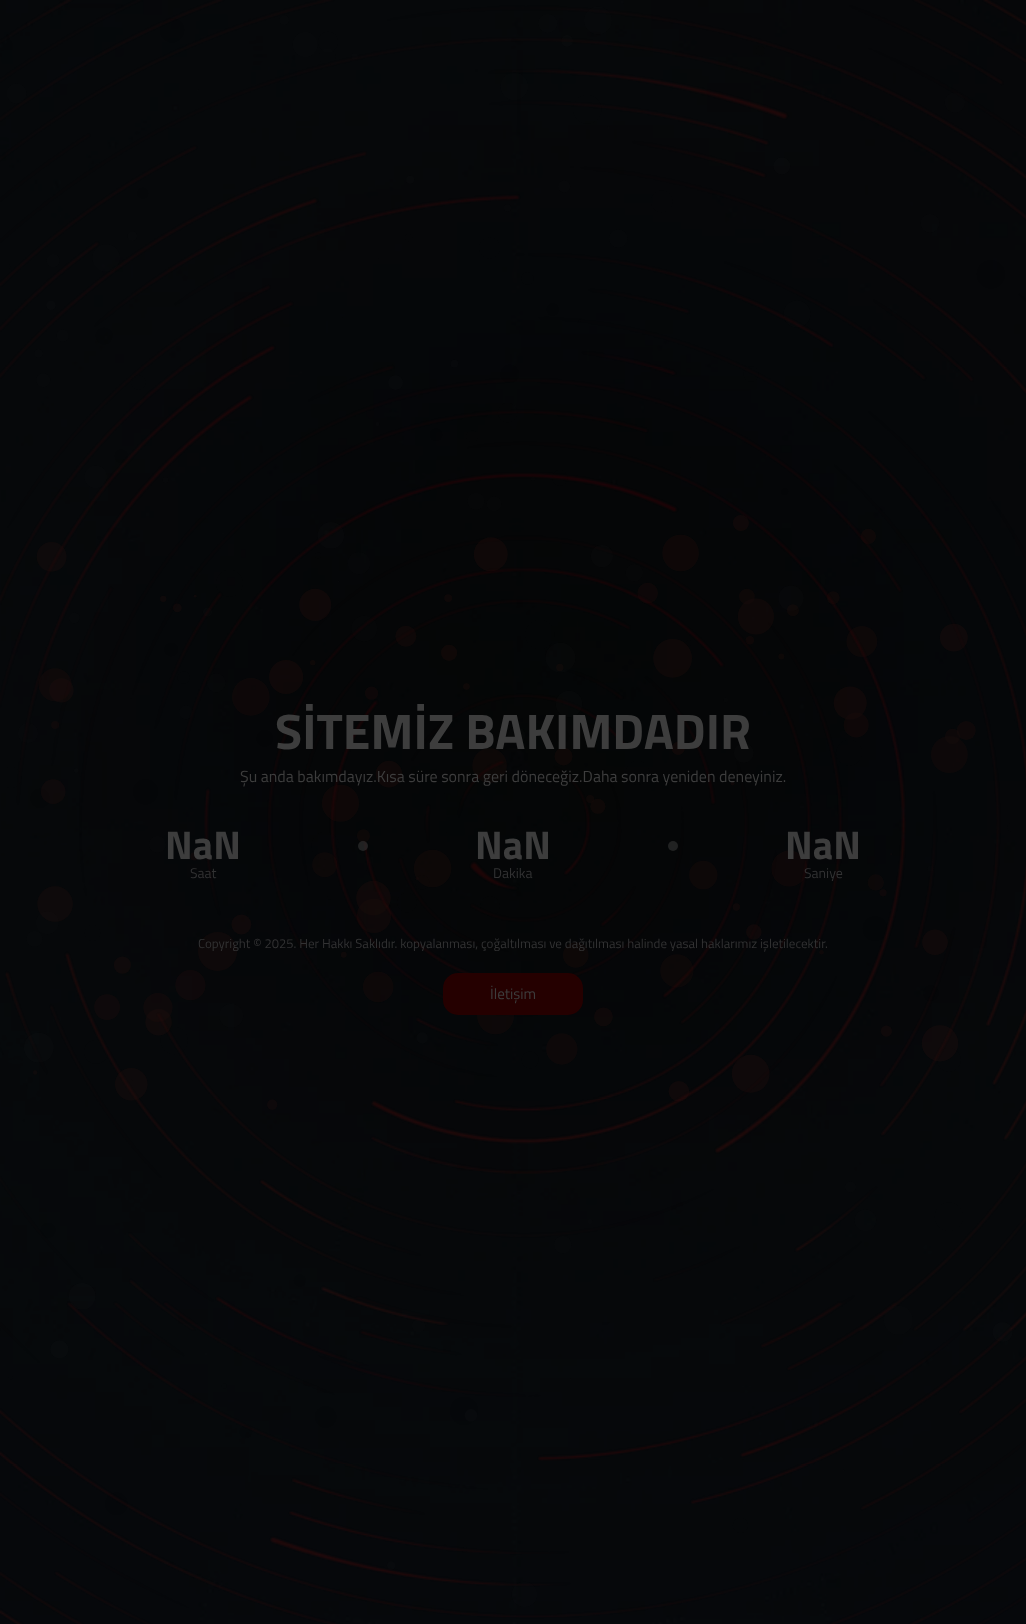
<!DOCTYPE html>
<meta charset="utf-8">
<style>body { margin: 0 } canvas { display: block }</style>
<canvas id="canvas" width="1026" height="1624"></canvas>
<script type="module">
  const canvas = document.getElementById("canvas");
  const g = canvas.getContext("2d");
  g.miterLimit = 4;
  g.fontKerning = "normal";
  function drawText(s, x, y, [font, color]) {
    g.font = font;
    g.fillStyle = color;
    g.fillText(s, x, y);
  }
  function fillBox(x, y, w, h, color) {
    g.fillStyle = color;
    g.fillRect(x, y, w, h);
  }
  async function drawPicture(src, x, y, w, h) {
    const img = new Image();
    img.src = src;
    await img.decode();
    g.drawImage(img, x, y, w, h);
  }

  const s1 = ["bold 50px Titillium Web", "#3D3D3D"];
  const s2 = ["16px Titillium Web", "#3D3D3D"];
  const s3 = ["bold 40px Titillium Web", "#3D3D3D"];
  const s4 = ["14px Titillium Web", "#323233"];
  const s5 = ["13px Titillium Web", "#323233"];
  const s6 = ["15px Titillium Web", "#3D3D3D"];

  fillBox(0, 0, 1026, 1624, "#FFFFFF");
  await drawPicture("pic1.png", 0, 0, 1026, 1624);
  await drawPicture("pic5.png", 33, 515, 943, 595);
  await drawPicture("pic3.png", 7, 1, 1006, 1606);
  await drawPicture("pic4.png", 0, 253, 1026, 1113);
  await drawPicture("pic2.png", 0, 0, 1026, 1624);
  drawText("SİTEMİZ BAKIMDADIR", 275, 749, s1);
  drawText("Şu anda bakımdayız.Kısa süre sonra geri döneceğiz.Daha sonra yeniden deneyiniz.", 240, 782, s2);
  drawText("NaN", 165, 859, s3);
  drawText("Saat", 190, 878, s4);
  g.fillStyle = "rgba(61, 61, 61, 0.5)";
  g.beginPath();
  g.arc(363, 846, 5, 0, Math.PI * 2);
  g.fill();
  drawText("NaN", 475, 859, s3);
  drawText("Dakika", 493, 878, s4);
  g.fillStyle = "rgba(61, 61, 61, 0.5)";
  g.beginPath();
  g.arc(673, 846, 5, 0, Math.PI * 2);
  g.fill();
  drawText("NaN", 785, 859, s3);
  drawText("Saniye", 804, 878, s4);
  drawText("Copyright © 2025. Her Hakkı Saklıdır. kopyalanması, çoğaltılması ve dağıtılması halinde yasal haklarımız işletilecektir.", 198, 948, s5);
  g.fillStyle = "#250000";
  g.beginPath();
  g.roundRect(444, 974, 138, 40, 14);
  g.fill();
  g.strokeStyle = "#250000";
  g.lineWidth = 2;
  g.stroke();
  drawText("İletişim", 490, 999, s6);
</script>
